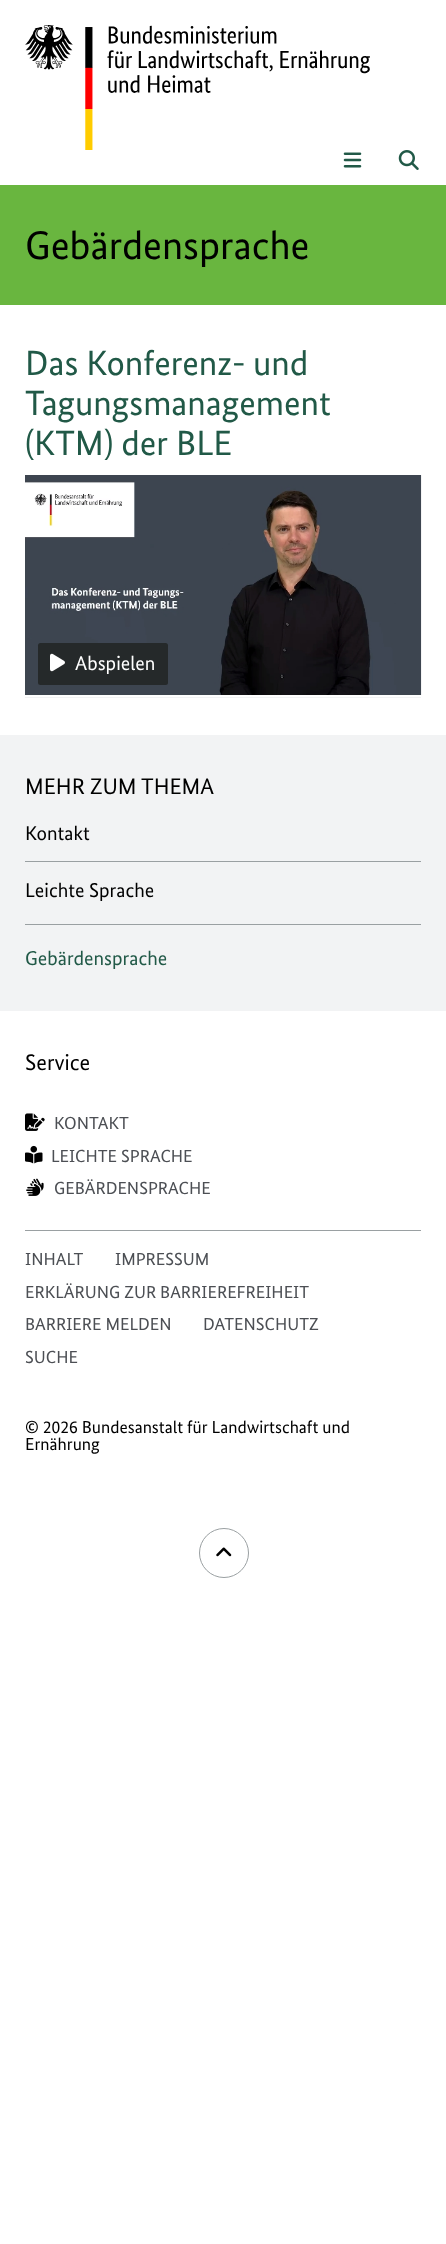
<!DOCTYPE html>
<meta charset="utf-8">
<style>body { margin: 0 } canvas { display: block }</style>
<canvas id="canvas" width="446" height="2244"></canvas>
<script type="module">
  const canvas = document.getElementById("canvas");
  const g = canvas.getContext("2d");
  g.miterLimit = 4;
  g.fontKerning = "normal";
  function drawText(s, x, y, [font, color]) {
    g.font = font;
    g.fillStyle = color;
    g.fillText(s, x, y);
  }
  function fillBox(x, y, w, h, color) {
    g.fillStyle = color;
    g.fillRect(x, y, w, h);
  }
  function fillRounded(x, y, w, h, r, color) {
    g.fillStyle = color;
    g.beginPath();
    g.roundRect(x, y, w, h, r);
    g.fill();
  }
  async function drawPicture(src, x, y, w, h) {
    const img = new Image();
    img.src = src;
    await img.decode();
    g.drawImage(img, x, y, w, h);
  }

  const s1 = ["40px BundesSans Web", "#000000"];
  const s2 = ["35px BundesSans Web", "#215947"];
  const s3 = ["20px BundesSans Web", "#FFFFFF"];
  const s4 = ["22.5px BundesSans Web", "#000000"];
  const s5 = ["20px BundesSans Web", "#000000"];
  const s6 = ["20px BundesSans Web", "#215947"];
  const s7 = ["17.5px BundesSans Web", "#4C4F54"];
  const s8 = ["17.5px BundesSans Web", "#000000"];

  fillBox(0, 0, 446, 2244, "#FFFFFF");
  await drawPicture("pic1.png", 25, 25, 345, 125);
  await drawPicture("pic2.png", 343, 152, 19, 16);
  await drawPicture("pic3.png", 398, 150, 21, 20);
  fillBox(0, 185, 446, 120, "#69B63F");
  drawText("Gebärdensprache", 25, 259, s1);
  drawText("Das Konferenz- und", 25, 375, s2);
  drawText("Tagungsmanagement", 25, 415, s2);
  drawText("(KTM) der BLE", 25, 455, s2);
  fillBox(25, 697, 396, 1, "#F2F3F4");
  await drawPicture("pic4.png", 25, 475, 397, 222);
  fillRounded(38, 643, 130, 42, 2.5, "#25292A");
  await drawPicture("pic5.png", 50, 653, 15, 19);
  drawText("Abspielen", 75, 670, s3);
  fillBox(0, 735, 446, 276, "#F2F3F4");
  drawText("MEHR ZUM THEMA", 25, 794, s4);
  fillBox(25, 861, 396, 1, "#9AA0A2");
  drawText("Kontakt", 25, 840, s5);
  fillBox(25, 924, 396, 1, "#9AA0A2");
  drawText("Leichte Sprache", 25, 897, s5);
  drawText("Gebärdensprache", 25, 965, s6);
  drawText("Service", 25, 1070, s4);
  await drawPicture("pic6.png", 25, 1113, 20, 18);
  drawText("KONTAKT", 54, 1129, s7);
  await drawPicture("pic7.png", 25, 1145, 18, 19);
  drawText("LEICHTE SPRACHE", 51, 1162, s7);
  await drawPicture("pic8.png", 26, 1178, 18, 18);
  drawText("GEBÄRDENSPRACHE", 54, 1194, s7);
  fillBox(25, 1230, 396, 1, "#9AA0A2");
  drawText("INHALT", 25, 1265, s7);
  drawText("IMPRESSUM", 115, 1265, s7);
  drawText("ERKLÄRUNG ZUR BARRIEREFREIHEIT", 25, 1298, s7);
  drawText("BARRIERE MELDEN", 25, 1330, s7);
  drawText("DATENSCHUTZ", 203, 1330, s7);
  drawText("SUCHE", 25, 1363, s7);
  drawText("© 2026 Bundesanstalt für Landwirtschaft und", 25, 1433, s8);
  drawText("Ernährung", 25, 1450, s8);
  g.beginPath();
  g.arc(224, 1553, 24.5, 0, Math.PI * 2);
  g.strokeStyle = "#9AA0A2";
  g.stroke();
  await drawPicture("pic9.png", 216, 1547, 16, 10);
</script>
